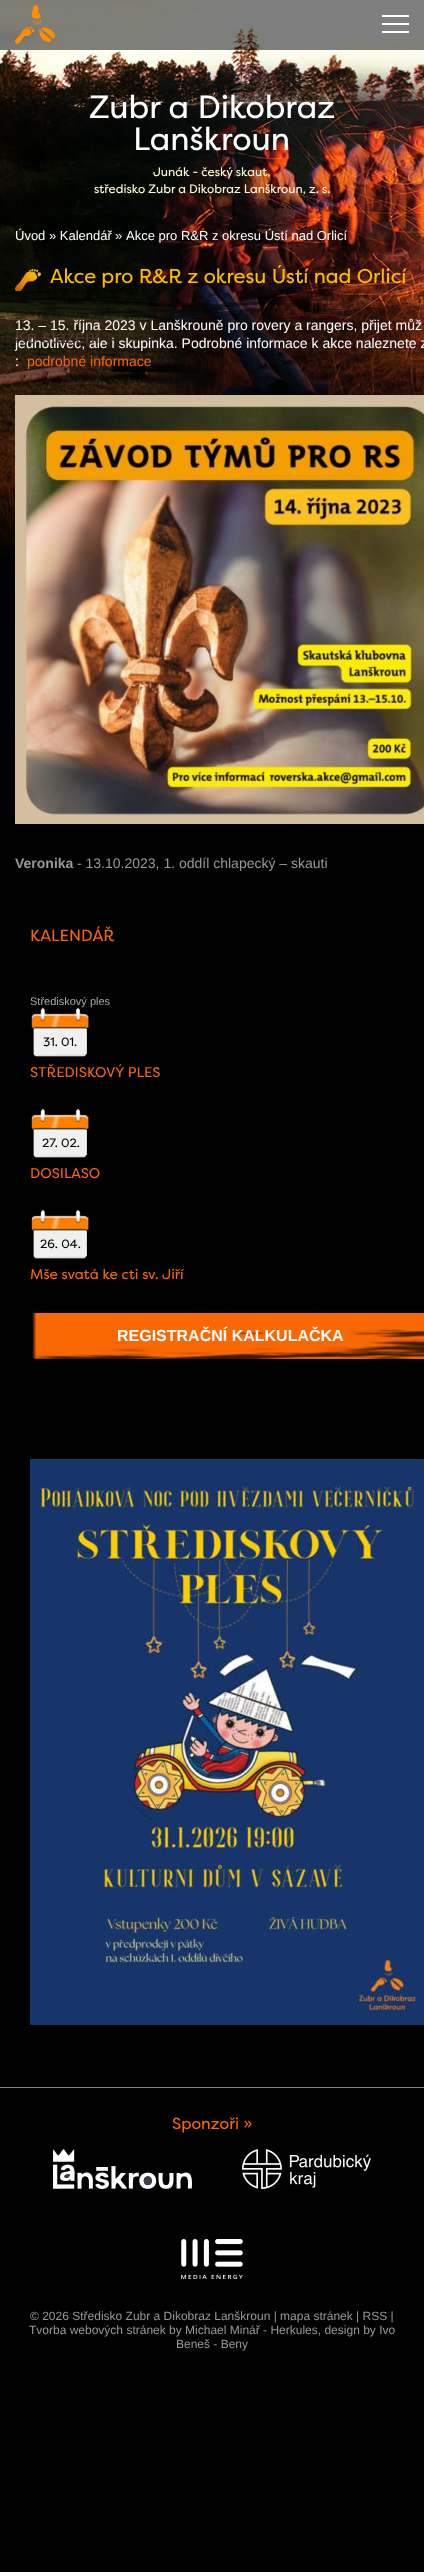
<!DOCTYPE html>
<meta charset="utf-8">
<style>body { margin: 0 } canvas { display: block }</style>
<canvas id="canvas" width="424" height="2572"></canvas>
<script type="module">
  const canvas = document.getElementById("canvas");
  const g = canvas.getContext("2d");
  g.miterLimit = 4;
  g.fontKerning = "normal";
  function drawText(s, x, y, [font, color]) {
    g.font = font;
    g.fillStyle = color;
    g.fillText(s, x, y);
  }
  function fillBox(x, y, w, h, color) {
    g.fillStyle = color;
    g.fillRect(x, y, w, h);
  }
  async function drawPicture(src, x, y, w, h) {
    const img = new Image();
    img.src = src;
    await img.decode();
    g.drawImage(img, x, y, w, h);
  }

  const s1 = ["32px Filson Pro", "#FFFFFF"];
  const s2 = ["12px Filson Pro", "#FDFBD4"];
  const s3 = ["14px Liberation Sans", "#FFFFFF"];
  const s4 = ["18px Liberation Sans", "#473C2C"];
  const s5 = ["13px Liberation Sans", "#FFFFFF"];
  const s6 = ["20px Filson Pro", "#FFBD00"];
  const s7 = ["14px Liberation Sans", "#FA6705"];
  const s8 = ["bold 14px Liberation Sans", "#999999"];
  const s9 = ["14px Liberation Sans", "#999999"];
  const s10 = ["16px Filson Pro", "#FA6705"];
  const s11 = ["11px Liberation Sans", "#AAAAAA"];
  const s12 = ["12px Filson Pro", "#000000"];
  const s13 = ["14px Filson Pro", "#FA6705"];
  const s14 = ["bold 16px Liberation Sans", "#FFFFFF"];
  const s15 = ["12px Liberation Sans", "#999999"];

  fillBox(0, 0, 424, 2572, "#000000");
  await drawPicture("pic1.png", 0, 0, 424, 557);
  fillBox(0, 0, 424, 50, "rgba(0, 0, 0, 0.5)");
  fillBox(382, 15, 27, 2, "#FFFFFF");
  fillBox(382, 23, 27, 2, "#FFFFFF");
  fillBox(382, 31, 27, 2, "#FFFFFF");
  await drawPicture("pic2.png", 15, 5, 40, 39);
  drawText("Zubr a Dikobraz", 89, 118, s1);
  drawText("Lanškroun", 133, 150, s1);
  drawText("Junák - český skaut,", 153, 176, s2);
  drawText("středisko Zubr a Dikobraz Lanškroun, z. s.", 94, 193, s2);
  drawText("jednotlivec, ale i skupinka. Podrobné informace k akce naleznete z", 15, 348, s3);
  drawText("Ke stažení", 15, 343, s4);
  drawText("Úvod » Kalendář", 15, 240, s5);
  drawText("»", 115, 240, s5);
  drawText("Akce pro R&R z okresu Ústí nad Orlicí", 126, 240, s5);
  await drawPicture("pic3.png", 15, 269, 26, 22);
  drawText("Akce pro R&R z okresu Ústí nad Orlicí", 50, 283, s6);
  drawText("13. – 15. října 2023 v Lanškrouně pro rovery a rangers, přijet můž", 15, 330, s3);
  drawText(":", 15, 366, s3);
  drawText("podrobné informace", 27, 366, s7);
  await drawPicture("pic4.png", 15, 395, 409, 429);
  drawText("Veronika", 15, 868, s8);
  drawText("- 13.10.2023, 1. oddíl chlapecký – skauti", 77, 868, s9);
  drawText("KALENDÁŘ", 30, 941, s10);
  drawText("Střediskový ples", 30, 1005, s11);
  await drawPicture("pic5.png", 31, 1008, 58, 49);
  drawText("31. 01.", 43, 1046, s12);
  drawText("STŘEDISKOVÝ PLES", 30, 1077, s13);
  await drawPicture("pic5.png", 31, 1109, 58, 49);
  drawText("27. 02.", 42, 1147, s12);
  drawText("DOSILASO", 30, 1178, s13);
  await drawPicture("pic5.png", 31, 1210, 58, 49);
  drawText("26. 04.", 40, 1248, s12);
  drawText("Mše svatá ke cti sv. Jiří", 30, 1279, s13);
  await drawPicture("pic6.png", 30, 1313, 394, 46);
  drawText("REGISTRAČNÍ KALKULAČKA", 117, 1341, s14);
  await drawPicture("pic7.png", 30, 1459, 394, 566);
  fillBox(0, 2087, 424, 1, "#808080");
  drawText("Sponzoři »", 172, 2129, s10);
  await drawPicture("pic8.png", 53, 2149, 139, 40);
  await drawPicture("pic9.png", 242, 2149, 129, 40);
  await drawPicture("pic10.png", 181, 2239, 62, 40);
  drawText("© 2026 Středisko Zubr a Dikobraz Lanškroun | mapa stránek | RSS |", 30, 2320, s15);
  drawText("Tvorba webových stránek by Michael Minář - Herkules, design by Ivo", 29, 2334, s15);
  drawText("Beneš - Beny", 176, 2348, s15);
</script>
